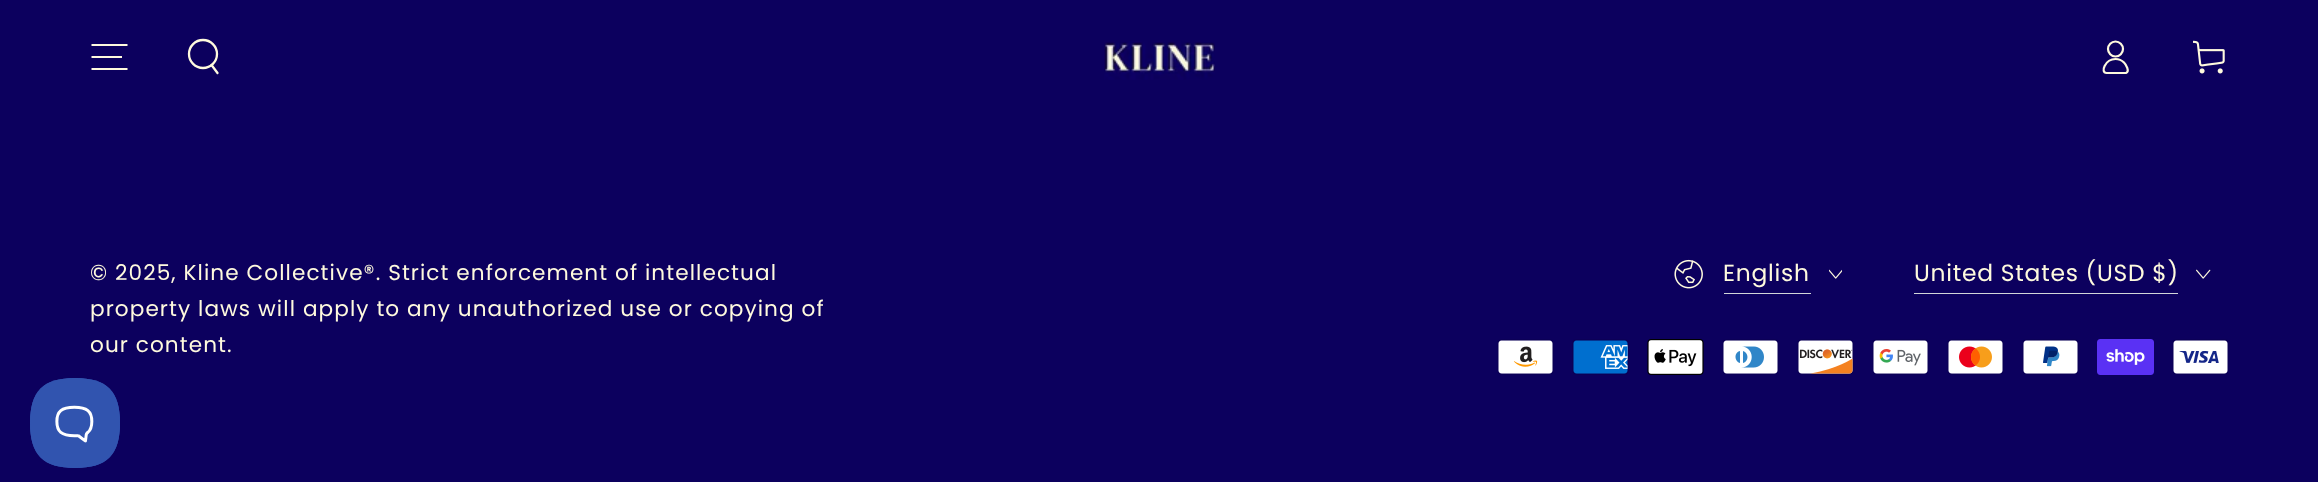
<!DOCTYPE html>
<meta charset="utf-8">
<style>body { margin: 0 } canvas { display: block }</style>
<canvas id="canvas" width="2318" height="482"></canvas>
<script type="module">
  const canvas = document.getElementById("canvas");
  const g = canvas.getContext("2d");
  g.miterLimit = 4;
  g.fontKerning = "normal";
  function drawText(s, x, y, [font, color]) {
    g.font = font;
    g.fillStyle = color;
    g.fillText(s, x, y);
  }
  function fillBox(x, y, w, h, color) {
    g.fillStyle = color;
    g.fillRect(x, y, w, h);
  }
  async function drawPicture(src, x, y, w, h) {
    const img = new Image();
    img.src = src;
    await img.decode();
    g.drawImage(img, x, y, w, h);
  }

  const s1 = ["21.6px Poppins", "#FFFADE"];
  const s2 = ["23.4px Poppins", "#FFFADE"];

  fillBox(0, 0, 2318, 482, "#0C005E");
  g.beginPath();
  g.moveTo(91.5, 69);
  g.lineTo(127.5, 69);
  g.moveTo(91.5, 57);
  g.lineTo(122, 57);
  g.moveTo(91.5, 45);
  g.lineTo(127.5, 45);
  g.strokeStyle = "#FFFADE";
  g.lineWidth = 2;
  g.stroke();
  g.beginPath();
  g.arc(203, 54, 14, 0, Math.PI * 2);
  g.lineWidth = 2.3;
  g.stroke();
  g.beginPath();
  g.moveTo(211.5, 65);
  g.lineTo(217.5, 73);
  g.lineCap = "round";
  g.stroke();
  await drawPicture("pic1.png", 1104, 41, 111, 39);
  g.beginPath();
  g.moveTo(2115.5, 59);
  g.bezierCurveTo(2105, 59, 2100, 73, 2106.5, 73);
  g.lineTo(2126, 73);
  g.bezierCurveTo(2130, 71.5, 2126, 64.5, 2124, 62.5);
  g.bezierCurveTo(2122, 60.5, 2119, 59, 2115.5, 59);
  g.closePath();
  g.lineWidth = 2.2;
  g.lineCap = "butt";
  g.stroke();
  g.beginPath();
  g.arc(2115.5, 49, 7.5, 0, Math.PI * 2);
  g.stroke();
  await drawPicture("pic2.png", 2193, 40, 32, 34);
  g.letterSpacing = "1.08px";
  drawText("© 2025, Kline Collective®. Strict enforcement of intellectual", 90, 280, s1);
  drawText("property laws will apply to any unauthorized use or copying of", 90, 316, s1);
  drawText("our content.", 90, 352, s1);
  await drawPicture("pic3.png", 1674, 259, 29, 30);
  fillBox(1724, 293, 87, 1, "#D2D5D9");
  g.letterSpacing = "0.75px";
  drawText("English", 1723, 281, s2);
  await drawPicture("pic4.png", 1829, 269, 13, 10);
  fillBox(1914, 293, 264, 1, "#D2D5D9");
  drawText("United States (USD $)", 1914, 281, s2);
  await drawPicture("pic5.png", 2196, 269, 15, 10);
  await drawPicture("pic6.png", 1497, 339, 57, 36);
  await drawPicture("pic7.png", 1572, 339, 57, 36);
  await drawPicture("pic8.png", 1647, 339, 57, 36);
  await drawPicture("pic9.png", 1722, 339, 57, 36);
  await drawPicture("pic10.png", 1797, 339, 57, 36);
  await drawPicture("pic11.png", 1872, 339, 57, 36);
  await drawPicture("pic12.png", 1947, 339, 57, 36);
  await drawPicture("pic13.png", 2022, 339, 57, 36);
  await drawPicture("pic14.png", 2097, 339, 57, 36);
  await drawPicture("pic15.png", 2172, 339, 57, 36);
  await drawPicture("pic16.png", 30, 378, 90, 90);
</script>
